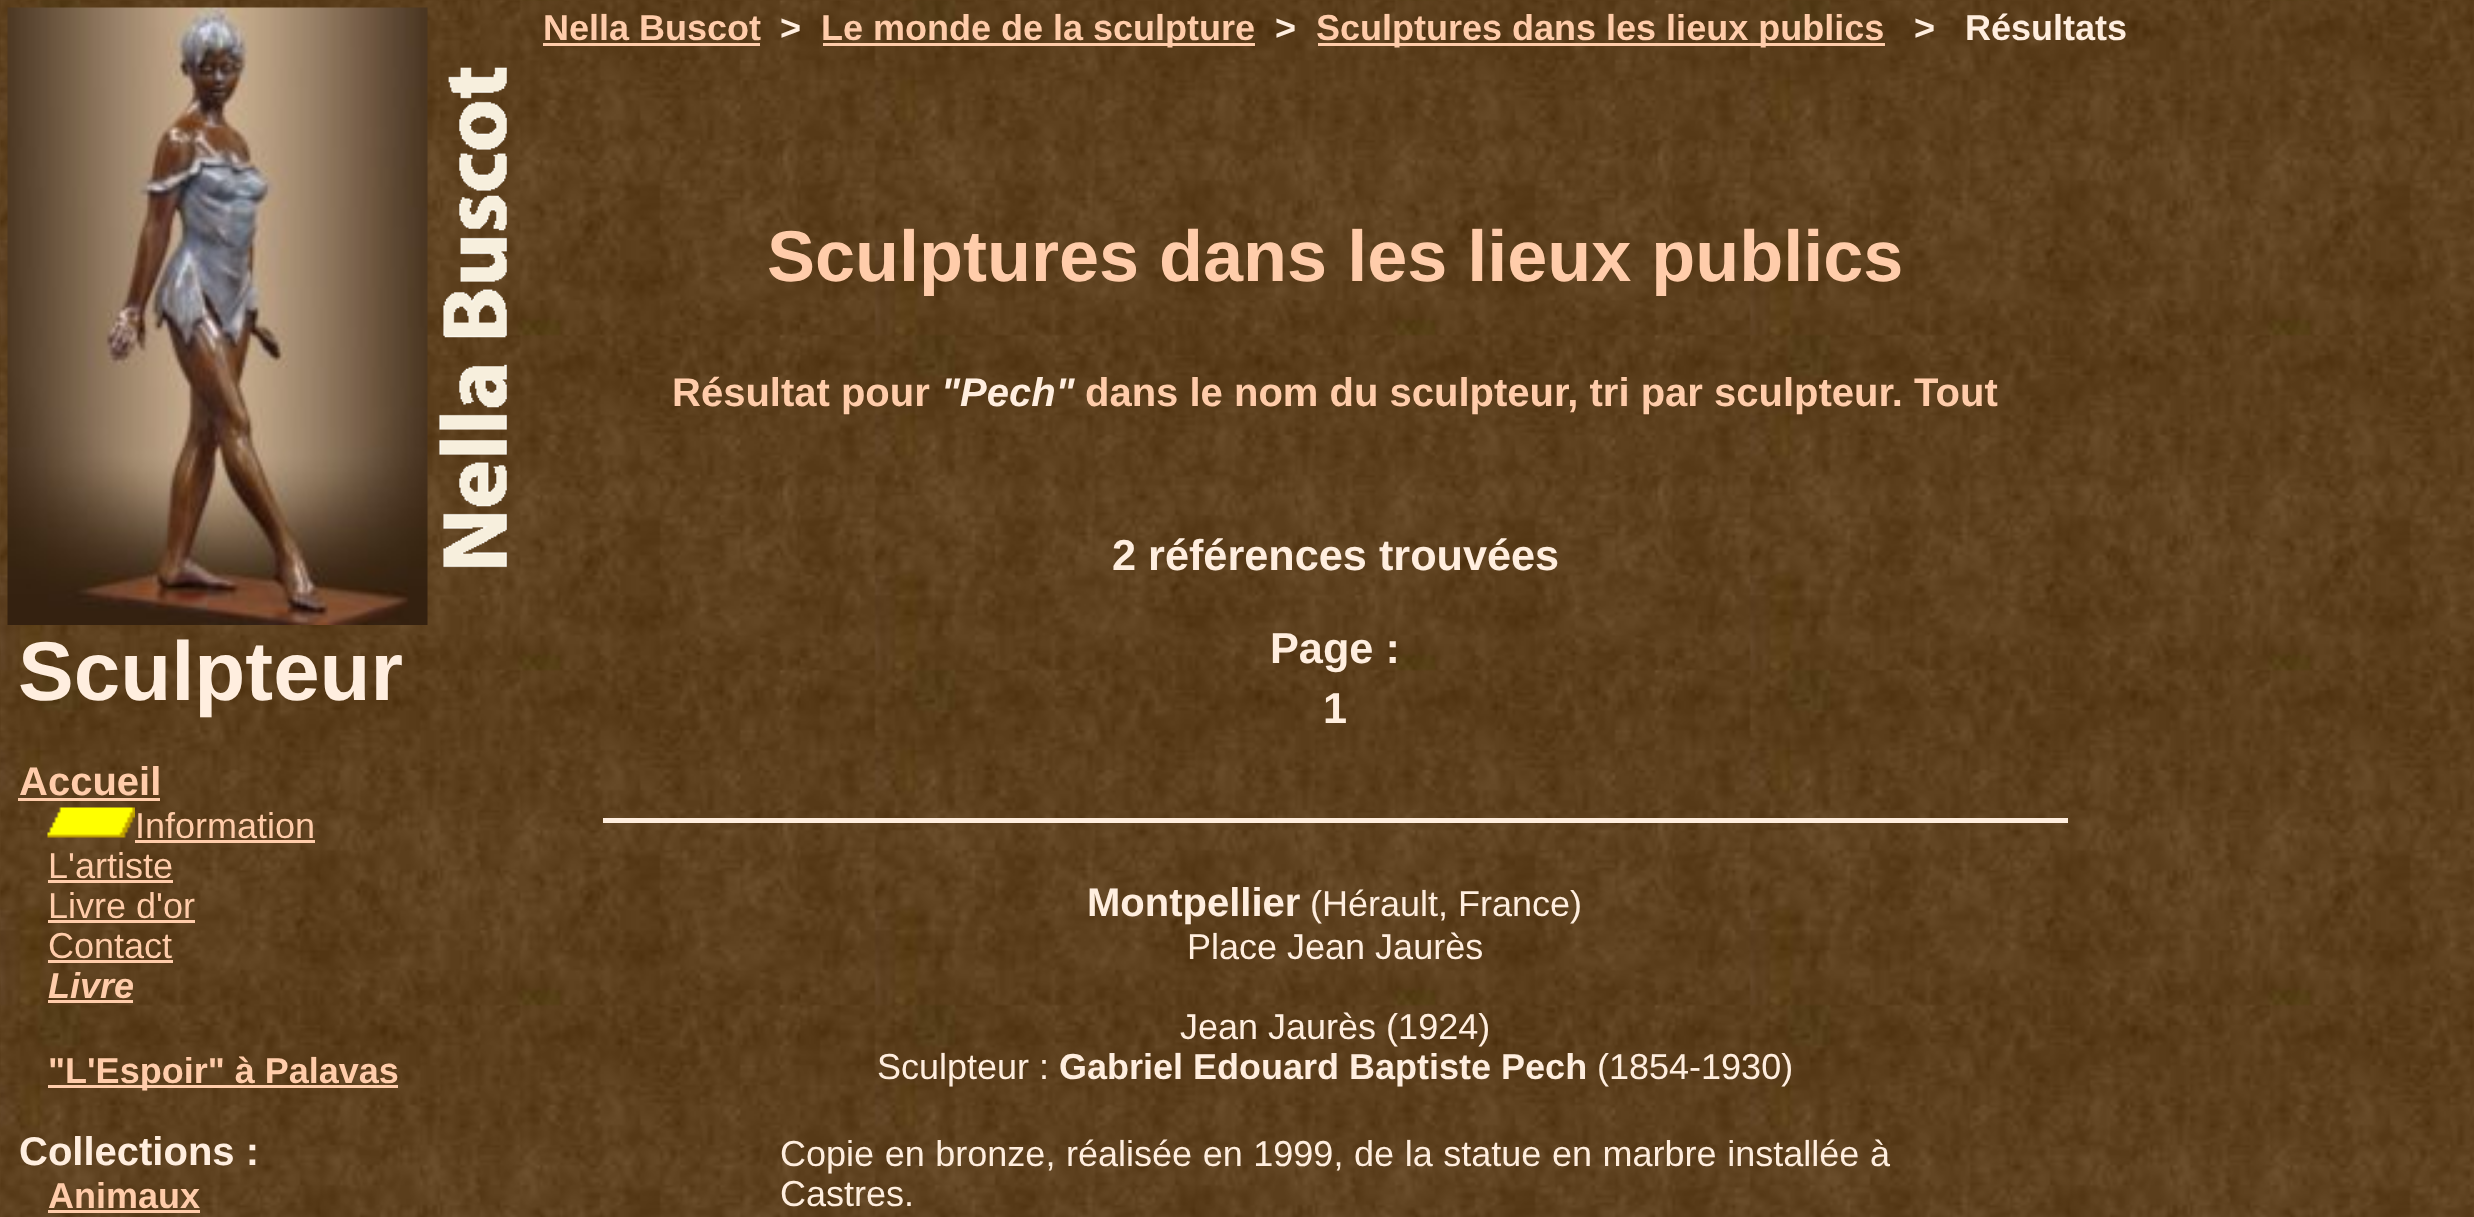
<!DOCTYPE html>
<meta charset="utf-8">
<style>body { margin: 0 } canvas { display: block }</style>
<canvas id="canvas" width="2474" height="1217"></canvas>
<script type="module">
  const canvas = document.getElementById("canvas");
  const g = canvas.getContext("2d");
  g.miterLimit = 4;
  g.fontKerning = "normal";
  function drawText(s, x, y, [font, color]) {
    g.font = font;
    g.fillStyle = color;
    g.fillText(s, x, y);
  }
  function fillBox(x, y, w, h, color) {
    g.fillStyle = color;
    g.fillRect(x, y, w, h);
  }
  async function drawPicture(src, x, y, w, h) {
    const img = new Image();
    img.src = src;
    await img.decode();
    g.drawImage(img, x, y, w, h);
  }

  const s1 = ["bold 83.5px Liberation Sans", "#FFEEDF"];
  const s2 = ["bold 40px Liberation Sans", "#FFCCAA"];
  const s3 = ["36px Liberation Sans", "#FFCCAA"];
  const s4 = ["italic bold 36px Liberation Sans", "#FFCCAA"];
  const s5 = ["bold 36px Liberation Sans", "#FFCCAA"];
  const s6 = ["bold 40px Liberation Sans", "#FFEEDF"];
  const s7 = ["bold 36px Liberation Sans", "#FFEEDF"];
  const s8 = ["bold 72px Liberation Sans", "#FFCCAA"];
  const s9 = ["italic bold 40px Liberation Sans", "#FFEEDF"];
  const s10 = ["bold 43.25px Liberation Sans", "#FFEEDF"];
  const s11 = ["36px Liberation Sans", "#FFEEDF"];

  fillBox(0, 0, 2474, 1217, "#FFFFFF");
  await drawPicture("pic1.png", 0, 0, 2474, 1217);
  await drawPicture("pic2.png", 7, 7, 421, 618);
  await drawPicture("pic3.png", 439, 67, 68, 501);
  drawText("Sculpteur", 18, 700, s1);
  drawText("Accueil", 19, 795, s2);
  fillBox(18, 798, 142, 3, "#FFCCAA");
  await drawPicture("pic4.png", 47, 807, 88, 31);
  drawText("Information", 135, 838, s3);
  fillBox(135, 840, 180, 3, "#FFCCAA");
  drawText("L'artiste", 48, 878, s3);
  fillBox(48, 880, 125, 3, "#FFCCAA");
  drawText("Livre d'or", 48, 918, s3);
  fillBox(48, 920, 147, 3, "#FFCCAA");
  drawText("Contact", 48, 958, s3);
  fillBox(48, 960, 125, 3, "#FFCCAA");
  drawText("Livre", 48, 998, s4);
  fillBox(48, 1000, 85, 3, "#FFCCAA");
  fillBox(48, 1085, 350, 3, "#FFCCAA");
  drawText("\"L'Espoir\" à Palavas", 48, 1083, s5);
  drawText("Collections :", 19, 1165, s6);
  drawText("Animaux", 48, 1208, s5);
  fillBox(48, 1210, 152, 3, "#FFCCAA");
  drawText("Nella Buscot", 543, 40, s5);
  fillBox(543, 43, 217, 3, "#FFCCAA");
  drawText(">", 780, 40, s7);
  fillBox(823, 43, 432, 3, "#FFCCAA");
  drawText("Le monde de la sculpture", 821, 40, s5);
  drawText(">", 1275, 40, s7);
  fillBox(1318, 43, 567, 3, "#FFCCAA");
  drawText("Sculptures dans les lieux publics", 1316, 40, s5);
  drawText(">   Résultats", 1914, 40, s7);
  drawText("Sculptures dans les lieux publics", 767, 281, s8);
  drawText("Résultat pour", 672, 406, s2);
  drawText("\"Pech\"", 941, 406, s9);
  drawText("dans le nom du sculpteur, tri par sculpteur. Tout", 1085, 406, s2);
  drawText("2 références trouvées", 1112, 570, s10);
  drawText("Page :", 1270, 663, s10);
  drawText("1", 1323, 723, s10);
  fillBox(603, 818, 1465, 5, "#FFEEDF");
  drawText("Montpellier", 1087, 916, s6);
  drawText("(Hérault, France)", 1310, 916, s11);
  drawText("Place Jean Jaurès", 1187, 959, s11);
  drawText("Jean Jaurès (1924)", 1180, 1039, s11);
  drawText("Sculpteur :", 877, 1079, s11);
  drawText("Gabriel Edouard Baptiste Pech", 1059, 1079, s7);
  drawText("(1854-1930)", 1597, 1079, s11);
  g.wordSpacing = "0.6px";
  drawText("Copie en bronze, réalisée en 1999, de la statue en marbre installée à", 780, 1166, s11);
  g.wordSpacing = "0px";
  drawText("Castres.", 780, 1206, s11);
</script>
